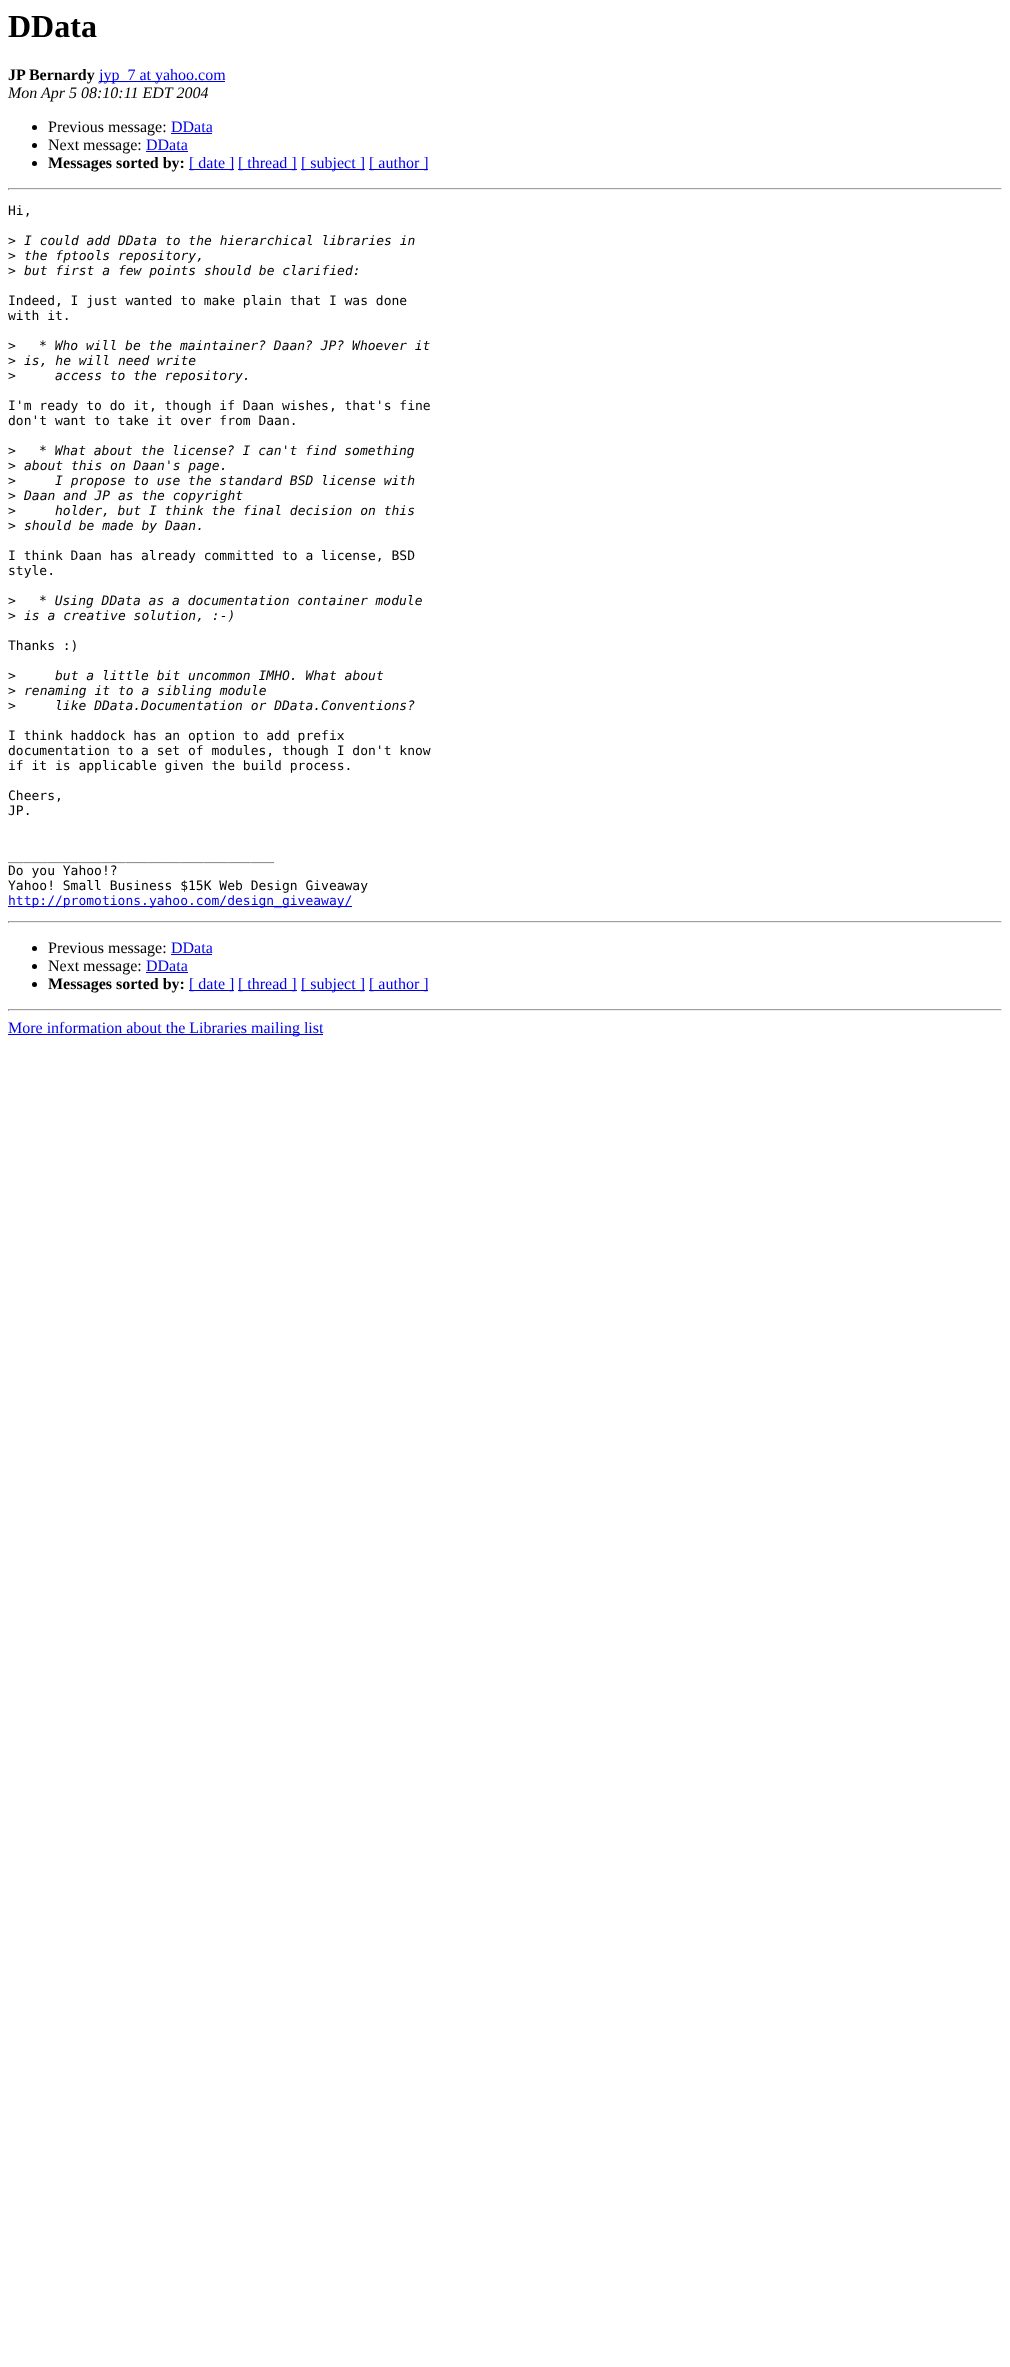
<!DOCTYPE html>
<meta charset="utf-8">
<style>body { margin: 0 } canvas { display: block }</style>
<canvas id="canvas" width="1010" height="2367"></canvas>
<script type="module">
  const canvas = document.getElementById("canvas");
  const g = canvas.getContext("2d");
  g.miterLimit = 4;
  g.fontKerning = "normal";
  function drawText(s, x, y, [font, color]) {
    g.font = font;
    g.fillStyle = color;
    g.fillText(s, x, y);
  }
  function fillBox(x, y, w, h, color) {
    g.fillStyle = color;
    g.fillRect(x, y, w, h);
  }

  const s1 = ["bold 32px Liberation Serif", "#000000"];
  const s2 = ["bold 16px Liberation Serif", "#000000"];
  const s3 = ["16px Liberation Serif", "#0000EE"];
  const s4 = ["italic 16px Liberation Serif", "#000000"];
  const s5 = ["16px Liberation Serif", "#000000"];
  const s6 = ["13px DejaVu Sans Mono", "#000000"];
  const s7 = ["italic 13px DejaVu Sans Mono", "#000000"];
  const s8 = ["13px DejaVu Sans Mono", "#0000EE"];

  fillBox(0, 0, 1010, 2367, "#FFFFFF");
  drawText("DData", 8, 37, s1);
  drawText("JP Bernardy", 8, 80, s2);
  fillBox(99, 81, 126, 1, "#0000EE");
  drawText("jyp_7 at yahoo.com", 99, 80, s3);
  drawText("Mon Apr 5 08:10:11 EDT 2004", 8, 98, s4);
  g.beginPath();
  g.arc(34.5, 127.5, 2.5, 0, Math.PI * 2);
  g.fill();
  drawText("Previous message:", 48, 132, s5);
  drawText("DData", 171, 132, s3);
  fillBox(171, 133, 41, 1, "#0000EE");
  g.fillStyle = "#000000";
  g.beginPath();
  g.arc(34.5, 145.5, 2.5, 0, Math.PI * 2);
  g.fill();
  drawText("Next message:", 48, 150, s5);
  drawText("DData", 146, 150, s3);
  fillBox(146, 151, 42, 1, "#0000EE");
  g.fillStyle = "#000000";
  g.beginPath();
  g.arc(34.5, 163.5, 2.5, 0, Math.PI * 2);
  g.fill();
  drawText("Messages sorted by:", 48, 168, s2);
  fillBox(189, 169, 45, 1, "#0000EE");
  drawText("[ date ]", 189, 168, s3);
  fillBox(238, 169, 59, 1, "#0000EE");
  drawText("[ thread ]", 238, 168, s3);
  fillBox(301, 169, 64, 1, "#0000EE");
  drawText("[ subject ]", 301, 168, s3);
  fillBox(369, 169, 59, 1, "#0000EE");
  drawText("[ author ]", 369, 168, s3);
  fillBox(8, 188, 994, 1, "#9F9F9F");
  fillBox(1001, 188, 1, 2, "#EEEEEE");
  fillBox(8, 189, 994, 1, "#EEEEEE");
  fillBox(8, 188, 1, 2, "#9F9F9F");
  drawText("Hi,", 8, 215, s6);
  drawText(">", 8, 245, s6);
  drawText("I could add DData to the hierarchical libraries in", 24, 245, s7);
  drawText(">", 8, 260, s6);
  drawText("the fptools repository,", 24, 260, s7);
  drawText(">", 8, 275, s6);
  drawText("but first a few points should be clarified:", 24, 275, s7);
  drawText("Indeed, I just wanted to make plain that I was done", 8, 305, s6);
  drawText("with it.", 8, 320, s6);
  drawText(">", 8, 350, s6);
  drawText("* Who will be the maintainer? Daan? JP? Whoever it", 39, 350, s7);
  drawText(">", 8, 365, s6);
  drawText("is, he will need write", 24, 365, s7);
  drawText(">", 8, 380, s6);
  drawText("access to the repository.", 55, 380, s7);
  drawText("I'm ready to do it, though if Daan wishes, that's fine", 8, 410, s6);
  drawText("don't want to take it over from Daan.", 8, 425, s6);
  drawText(">", 8, 455, s6);
  drawText("* What about the license? I can't find something", 39, 455, s7);
  drawText(">", 8, 470, s6);
  drawText("about this on Daan's page.", 24, 470, s7);
  drawText(">", 8, 485, s6);
  drawText("I propose to use the standard BSD license with", 55, 485, s7);
  drawText(">", 8, 500, s6);
  drawText("Daan and JP as the copyright", 24, 500, s7);
  drawText(">", 8, 515, s6);
  drawText("holder, but I think the final decision on this", 55, 515, s7);
  drawText(">", 8, 530, s6);
  drawText("should be made by Daan.", 24, 530, s7);
  drawText("I think Daan has already committed to a license, BSD", 8, 560, s6);
  drawText("style.", 8, 575, s6);
  drawText(">", 8, 605, s6);
  drawText("* Using DData as a documentation container module", 39, 605, s7);
  drawText(">", 8, 620, s6);
  drawText("is a creative solution, :-)", 24, 620, s7);
  drawText("Thanks :)", 8, 650, s6);
  drawText(">", 8, 680, s6);
  drawText("but a little bit uncommon IMHO. What about", 55, 680, s7);
  drawText(">", 8, 695, s6);
  drawText("renaming it to a sibling module", 24, 695, s7);
  drawText(">", 8, 710, s6);
  drawText("like DData.Documentation or DData.Conventions?", 55, 710, s7);
  drawText("I think haddock has an option to add prefix", 8, 740, s6);
  drawText("documentation to a set of modules, though I don't know", 8, 755, s6);
  drawText("if it is applicable given the build process.", 8, 770, s6);
  drawText("Cheers,", 8, 800, s6);
  drawText("JP.", 8, 815, s6);
  drawText("__________________________________", 8, 860, s6);
  drawText("Do you Yahoo!?", 8, 875, s6);
  drawText("Yahoo! Small Business $15K Web Design Giveaway", 8, 890, s6);
  fillBox(8, 906, 344, 1, "#0000EE");
  drawText("http://promotions.yahoo.com/design_giveaway/", 8, 905, s8);
  fillBox(8, 921, 994, 1, "#9F9F9F");
  fillBox(1001, 921, 1, 2, "#EEEEEE");
  fillBox(8, 922, 994, 1, "#EEEEEE");
  fillBox(8, 921, 1, 2, "#9F9F9F");
  g.fillStyle = "#000000";
  g.beginPath();
  g.arc(34.5, 948.5, 2.5, 0, Math.PI * 2);
  g.fill();
  drawText("Previous message:", 48, 953, s5);
  drawText("DData", 171, 953, s3);
  fillBox(171, 954, 41, 1, "#0000EE");
  g.fillStyle = "#000000";
  g.beginPath();
  g.arc(34.5, 966.5, 2.5, 0, Math.PI * 2);
  g.fill();
  drawText("Next message:", 48, 971, s5);
  drawText("DData", 146, 971, s3);
  fillBox(146, 972, 42, 1, "#0000EE");
  g.fillStyle = "#000000";
  g.beginPath();
  g.arc(34.5, 984.5, 2.5, 0, Math.PI * 2);
  g.fill();
  drawText("Messages sorted by:", 48, 989, s2);
  fillBox(189, 990, 45, 1, "#0000EE");
  drawText("[ date ]", 189, 989, s3);
  fillBox(238, 990, 59, 1, "#0000EE");
  drawText("[ thread ]", 238, 989, s3);
  fillBox(301, 990, 64, 1, "#0000EE");
  drawText("[ subject ]", 301, 989, s3);
  fillBox(369, 990, 59, 1, "#0000EE");
  drawText("[ author ]", 369, 989, s3);
  fillBox(8, 1009, 994, 1, "#9F9F9F");
  fillBox(1001, 1009, 1, 2, "#EEEEEE");
  fillBox(8, 1010, 994, 1, "#EEEEEE");
  fillBox(8, 1009, 1, 2, "#9F9F9F");
  fillBox(8, 1034, 315, 1, "#0000EE");
  drawText("More information about the Libraries mailing list", 8, 1033, s3);
</script>
